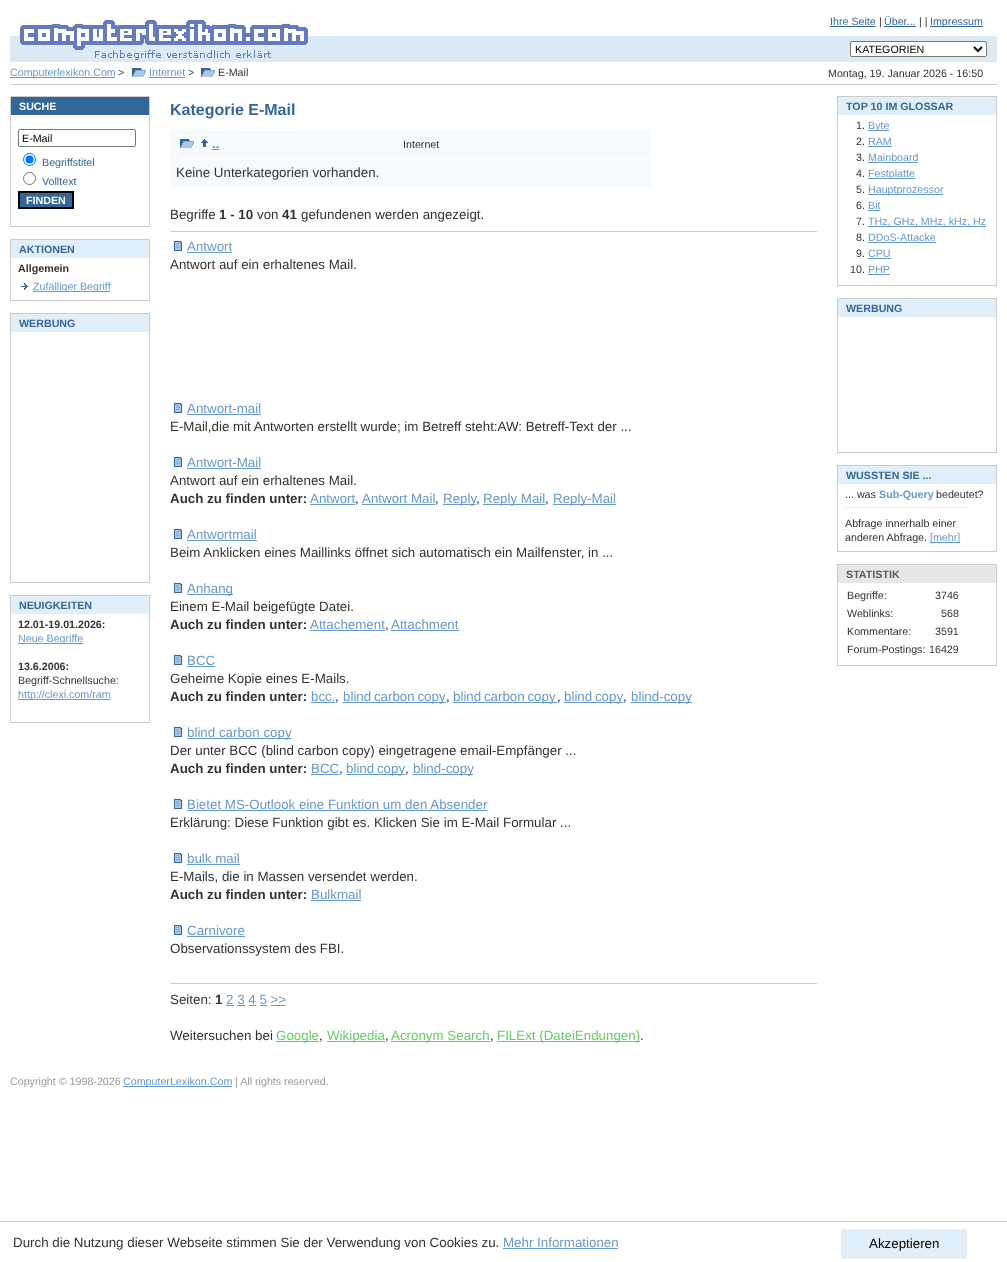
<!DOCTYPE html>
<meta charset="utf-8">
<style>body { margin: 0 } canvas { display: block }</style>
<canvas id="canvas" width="1007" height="1262"></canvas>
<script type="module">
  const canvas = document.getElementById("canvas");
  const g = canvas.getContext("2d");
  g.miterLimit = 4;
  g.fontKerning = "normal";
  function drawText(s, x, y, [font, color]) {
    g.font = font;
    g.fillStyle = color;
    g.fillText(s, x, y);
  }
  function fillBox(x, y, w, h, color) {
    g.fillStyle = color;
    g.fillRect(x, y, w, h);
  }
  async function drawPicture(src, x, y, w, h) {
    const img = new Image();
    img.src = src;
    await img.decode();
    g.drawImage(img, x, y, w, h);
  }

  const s1 = ["10.7px Liberation Sans", "#33669B"];
  const s2 = ["10.7px Liberation Sans", "#333333"];
  const s3 = ["10.7px Liberation Sans", "#000000"];
  const s4 = ["10.7px Liberation Sans", "#6699CC"];
  const s5 = ["bold 10.7px Liberation Sans", "#FFFFFF"];
  const s6 = ["bold 10.7px Liberation Sans", "#33669B"];
  const s7 = ["bold 10.7px Liberation Sans", "#333333"];
  const s8 = ["bold 16px Liberation Sans", "#33669B"];
  const s9 = ["bold 13.35px Liberation Sans", "#6699CC"];
  const s10 = ["13.35px Liberation Sans", "#333333"];
  const s11 = ["bold 13.35px Liberation Sans", "#333333"];
  const s12 = ["13.35px Liberation Sans", "#6699CC"];
  const s13 = ["13.35px Liberation Sans", "#66CC66"];
  const s14 = ["bold 10.7px Liberation Sans", "#6699CC"];
  const s15 = ["bold 10.7px Liberation Sans", "#5A5A5A"];
  const s16 = ["10.7px Liberation Sans", "#999999"];
  const s17 = ["13.35px Liberation Sans", "#000000"];

  fillBox(0, 0, 1007, 1262, "#FFFFFF");
  fillBox(10, 84, 987, 1, "#CCCCCC");
  fillBox(10, 36, 987, 26, "#DCEAF6");
  await drawPicture("pic1.png", 20, 20, 288, 40);
  drawText("Ihre Seite", 830, 25, s1);
  fillBox(830, 26, 46, 1, "#33669B");
  drawText("|", 879, 25, s2);
  drawText("Über...", 884, 25, s1);
  fillBox(884, 26, 32, 1, "#33669B");
  drawText("| |", 919, 25, s2);
  fillBox(930, 26, 53, 1, "#33669B");
  drawText("Impressum", 930, 25, s1);
  g.fillStyle = "#FFFFFF";
  g.beginPath();
  g.roundRect(850.5, 41.5, 136, 15, 1.5);
  g.fill();
  g.strokeStyle = "#767676";
  g.stroke();
  g.beginPath();
  g.moveTo(974, 47);
  g.lineTo(978, 51);
  g.lineTo(982, 47);
  g.strokeStyle = "#000000";
  g.lineWidth = 2;
  g.stroke();
  drawText("KATEGORIEN", 855, 53, s3);
  fillBox(10, 77, 105, 1, "#6699CC");
  drawText("Computerlexikon.Com", 10, 76, s4);
  drawText(">", 118, 76, s2);
  await drawPicture("pic2.png", 132, 68, 14, 9);
  drawText("Internet", 149, 76, s4);
  fillBox(149, 77, 36, 1, "#6699CC");
  drawText(">", 188, 76, s2);
  await drawPicture("pic2.png", 201, 68, 14, 9);
  drawText("E-Mail", 218, 76, s2);
  drawText("Montag, 19. Januar 2026 - 16:50", 828, 77, s2);
  g.strokeStyle = "#CCCCCC";
  g.lineWidth = 1;
  g.strokeRect(10.5, 96.5, 139, 130);
  fillBox(11, 97, 138, 18, "#336699");
  drawText("SUCHE", 19, 110, s5);
  g.beginPath();
  g.roundRect(18.5, 129.5, 117, 17, 1.5);
  g.strokeStyle = "#767676";
  g.stroke();
  drawText("E-Mail", 22, 142, s3);
  g.beginPath();
  g.arc(29.5, 159.5, 6, 0, Math.PI * 2);
  g.strokeStyle = "#0075FF";
  g.stroke();
  g.fillStyle = "#0075FF";
  g.beginPath();
  g.arc(29.5, 159.5, 4, 0, Math.PI * 2);
  g.fill();
  drawText("Begriffstitel", 42, 166, s1);
  g.beginPath();
  g.arc(29.5, 178.5, 6, 0, Math.PI * 2);
  g.strokeStyle = "#767676";
  g.stroke();
  drawText("Volltext", 42, 185, s1);
  g.fillStyle = "#336699";
  g.beginPath();
  g.rect(19, 192, 54, 16);
  g.fill();
  g.strokeStyle = "#000000";
  g.lineWidth = 2;
  g.stroke();
  drawText("FINDEN", 26, 204, s5);
  g.strokeStyle = "#CCCCCC";
  g.lineWidth = 1;
  g.strokeRect(10.5, 239.5, 139, 61);
  fillBox(11, 240, 138, 18, "#E1EFFA");
  drawText("AKTIONEN", 19, 253, s6);
  drawText("Allgemein", 18, 272, s7);
  await drawPicture("pic3.png", 21, 283, 7, 7);
  fillBox(33, 291, 77, 1, "#6699CC");
  drawText("Zufälliger Begriff", 33, 290, s4);
  g.strokeRect(10.5, 313.5, 139, 269);
  fillBox(11, 314, 138, 18, "#E1EFFA");
  drawText("WERBUNG", 19, 327, s6);
  g.strokeRect(10.5, 595.5, 139, 127);
  fillBox(11, 596, 138, 18, "#E1EFFA");
  drawText("NEUIGKEITEN", 19, 609, s6);
  drawText("12.01-19.01.2026:", 18, 628, s7);
  fillBox(18, 643, 65, 1, "#6699CC");
  drawText("Neue Begriffe", 18, 642, s4);
  drawText("13.6.2006:", 18, 670, s7);
  drawText("Begriff-Schnellsuche:", 18, 684, s2);
  fillBox(18, 699, 92, 1, "#6699CC");
  drawText("http://clexi.com/ram", 18, 698, s4);
  drawText("Kategorie E-Mail", 170, 115, s8);
  fillBox(171, 130, 480, 28, "#F6FAFD");
  await drawPicture("pic4.png", 180, 139, 14, 9);
  await drawPicture("pic5.png", 201, 139, 7, 8);
  drawText("..", 212, 148, s9);
  fillBox(212, 149, 7, 1, "#6699CC");
  drawText("Internet", 403, 148, s2);
  fillBox(171, 159, 480, 28, "#F6FAFD");
  drawText("Keine Unterkategorien vorhanden.", 176, 177, s10);
  drawText("Begriffe", 170, 219, s10);
  drawText("1 - 10", 219, 219, s11);
  drawText("von", 257, 219, s10);
  drawText("41", 282, 219, s11);
  drawText("gefundenen werden angezeigt.", 301, 219, s10);
  fillBox(170, 231, 647, 1, "#CCCCCC");
  await drawPicture("pic6.png", 174, 241, 8, 10);
  drawText("Antwort", 187, 251, s12);
  fillBox(187, 252, 45, 1, "#6699CC");
  drawText("Antwort auf ein erhaltenes Mail.", 170, 269, s10);
  await drawPicture("pic6.png", 174, 403, 8, 10);
  drawText("Antwort-mail", 187, 413, s12);
  fillBox(187, 414, 74, 1, "#6699CC");
  drawText("E-Mail,die mit Antworten erstellt wurde; im Betreff steht:AW: Betreff-Text der ...", 170, 431, s10);
  await drawPicture("pic6.png", 174, 457, 8, 10);
  drawText("Antwort-Mail", 187, 467, s12);
  fillBox(187, 468, 74, 1, "#6699CC");
  drawText("Antwort auf ein erhaltenes Mail.", 170, 485, s10);
  drawText("Auch zu finden unter:", 170, 503, s11);
  drawText("Antwort", 310, 503, s12);
  fillBox(310, 504, 45, 1, "#6699CC");
  drawText(",", 355, 503, s10);
  drawText("Antwort Mail", 362, 503, s12);
  fillBox(362, 504, 73, 1, "#6699CC");
  drawText(",", 435, 503, s10);
  fillBox(443, 504, 33, 1, "#6699CC");
  drawText("Reply", 443, 503, s12);
  drawText(",", 476, 503, s10);
  fillBox(483, 504, 62, 1, "#6699CC");
  drawText("Reply Mail", 483, 503, s12);
  drawText(",", 545, 503, s10);
  fillBox(553, 504, 63, 1, "#6699CC");
  drawText("Reply-Mail", 553, 503, s12);
  await drawPicture("pic6.png", 174, 529, 8, 10);
  drawText("Antwortmail", 187, 539, s12);
  fillBox(187, 540, 70, 1, "#6699CC");
  drawText("Beim Anklicken eines Maillinks öffnet sich automatisch ein Mailfenster, in ...", 170, 557, s10);
  await drawPicture("pic6.png", 174, 583, 8, 10);
  fillBox(187, 594, 46, 1, "#6699CC");
  drawText("Anhang", 187, 593, s12);
  drawText("Einem E-Mail beigefügte Datei.", 170, 611, s10);
  drawText("Auch zu finden unter:", 170, 629, s11);
  drawText("Attachement", 310, 629, s12);
  fillBox(310, 630, 75, 1, "#6699CC");
  drawText(",", 385, 629, s10);
  drawText("Attachment", 391, 629, s12);
  fillBox(391, 630, 68, 1, "#6699CC");
  await drawPicture("pic6.png", 174, 655, 8, 10);
  drawText("BCC", 187, 665, s12);
  fillBox(187, 666, 28, 1, "#6699CC");
  drawText("Geheime Kopie eines E-Mails.", 170, 683, s10);
  drawText("Auch zu finden unter:", 170, 701, s11);
  drawText("bcc.", 311, 701, s12);
  fillBox(311, 702, 24, 1, "#6699CC");
  drawText(",", 335, 701, s10);
  fillBox(343, 702, 103, 1, "#6699CC");
  g.wordSpacing = "-1px";
  drawText("blind carbon copy", 343, 701, s12);
  g.wordSpacing = "0px";
  drawText(",", 446, 701, s10);
  fillBox(453, 702, 104, 1, "#6699CC");
  g.wordSpacing = "-1px";
  drawText("blind carbon copy", 453, 701, s12);
  g.wordSpacing = "0px";
  drawText(",", 557, 701, s10);
  fillBox(564, 702, 59, 1, "#6699CC");
  g.wordSpacing = "-1px";
  drawText("blind copy", 564, 701, s12);
  g.wordSpacing = "0px";
  drawText(",", 623, 701, s10);
  fillBox(631, 702, 61, 1, "#6699CC");
  drawText("blind-copy", 631, 701, s12);
  await drawPicture("pic6.png", 174, 727, 8, 10);
  fillBox(187, 738, 104, 1, "#6699CC");
  drawText("blind carbon copy", 187, 737, s12);
  drawText("Der unter BCC (blind carbon copy) eingetragene email-Empfänger ...", 170, 755, s10);
  drawText("Auch zu finden unter:", 170, 773, s11);
  drawText("BCC", 311, 773, s12);
  fillBox(311, 774, 28, 1, "#6699CC");
  drawText(",", 339, 773, s10);
  fillBox(346, 774, 59, 1, "#6699CC");
  g.wordSpacing = "-1px";
  drawText("blind copy", 346, 773, s12);
  g.wordSpacing = "0px";
  drawText(",", 405, 773, s10);
  fillBox(413, 774, 60, 1, "#6699CC");
  drawText("blind-copy", 413, 773, s12);
  await drawPicture("pic6.png", 174, 799, 8, 10);
  drawText("Bietet MS-Outlook eine Funktion um den Absender", 187, 809, s12);
  fillBox(187, 810, 300, 1, "#6699CC");
  drawText("Erklärung: Diese Funktion gibt es. Klicken Sie im E-Mail Formular ...", 170, 827, s10);
  await drawPicture("pic6.png", 174, 853, 8, 10);
  drawText("bulk mail", 187, 863, s12);
  fillBox(187, 864, 53, 1, "#6699CC");
  drawText("E-Mails, die in Massen versendet werden.", 170, 881, s10);
  drawText("Auch zu finden unter:", 170, 899, s11);
  drawText("Bulkmail", 311, 899, s12);
  fillBox(311, 900, 50, 1, "#6699CC");
  await drawPicture("pic6.png", 174, 925, 8, 10);
  drawText("Carnivore", 187, 935, s12);
  fillBox(187, 936, 58, 1, "#6699CC");
  drawText("Observationssystem des FBI.", 170, 953, s10);
  fillBox(170, 983, 647, 1, "#CCCCCC");
  drawText("Seiten:", 170, 1004, s10);
  drawText("1", 215, 1004, s11);
  drawText("2 3 4 5 >>", 226, 1004, s12);
  fillBox(226, 1005, 8, 1, "#6699CC");
  fillBox(237, 1005, 8, 1, "#6699CC");
  fillBox(249, 1005, 7, 1, "#6699CC");
  fillBox(260, 1005, 7, 1, "#6699CC");
  fillBox(271, 1005, 15, 1, "#6699CC");
  drawText("Weitersuchen bei", 170, 1040, s10);
  fillBox(276, 1041, 43, 1, "#66CC66");
  drawText("Google", 276, 1040, s13);
  drawText(",", 319, 1040, s10);
  fillBox(327, 1041, 58, 1, "#66CC66");
  drawText("Wikipedia", 327, 1040, s13);
  drawText(",", 385, 1040, s10);
  fillBox(391, 1041, 99, 1, "#66CC66");
  drawText("Acronym Search", 391, 1040, s13);
  drawText(",", 490, 1040, s10);
  fillBox(497, 1041, 143, 1, "#66CC66");
  drawText("FILExt (DateiEndungen)", 497, 1040, s13);
  drawText(".", 640, 1040, s10);
  g.strokeRect(837.5, 96.5, 159, 189);
  fillBox(838, 97, 158, 18, "#E1EFFA");
  drawText("TOP 10 IM GLOSSAR", 846, 110, s6);
  drawText("1.", 856, 129, s2);
  fillBox(868, 130, 21, 1, "#6699CC");
  drawText("Byte", 868, 129, s4);
  drawText("2.", 856, 145, s2);
  drawText("RAM", 868, 145, s4);
  fillBox(868, 146, 24, 1, "#6699CC");
  drawText("3.", 856, 161, s2);
  drawText("Mainboard", 868, 161, s4);
  fillBox(868, 162, 50, 1, "#6699CC");
  drawText("4.", 856, 177, s2);
  fillBox(868, 178, 47, 1, "#6699CC");
  drawText("Festplatte", 868, 177, s4);
  drawText("5.", 856, 193, s2);
  fillBox(868, 194, 75, 1, "#6699CC");
  drawText("Hauptprozessor", 868, 193, s4);
  drawText("6.", 856, 209, s2);
  drawText("Bit", 868, 209, s4);
  fillBox(868, 210, 12, 1, "#6699CC");
  drawText("7.", 856, 225, s2);
  fillBox(868, 226, 118, 1, "#6699CC");
  drawText("THz, GHz, MHz, kHz, Hz", 868, 225, s4);
  drawText("8.", 856, 241, s2);
  drawText("DDoS-Attacke", 868, 241, s4);
  fillBox(868, 242, 68, 1, "#6699CC");
  drawText("9.", 856, 257, s2);
  drawText("CPU", 868, 257, s4);
  fillBox(868, 258, 23, 1, "#6699CC");
  drawText("10.", 850, 273, s2);
  drawText("PHP", 868, 273, s4);
  fillBox(868, 274, 22, 1, "#6699CC");
  g.strokeRect(837.5, 298.5, 159, 154);
  fillBox(838, 299, 158, 18, "#E1EFFA");
  drawText("WERBUNG", 846, 312, s6);
  g.strokeRect(837.5, 465.5, 159, 86);
  fillBox(838, 466, 158, 18, "#E1EFFA");
  drawText("WUSSTEN SIE ...", 846, 479, s6);
  drawText("... was", 845, 498, s2);
  drawText("Sub-Query", 879, 498, s14);
  drawText("bedeutet?", 936, 498, s2);
  fillBox(845, 507, 123, 1, "#EBEBEB");
  drawText("Abfrage innerhalb einer", 845, 527, s2);
  drawText("anderen Abfrage.", 845, 541, s2);
  fillBox(930, 542, 30, 1, "#6699CC");
  drawText("[mehr]", 930, 541, s4);
  g.strokeRect(837.5, 564.5, 159, 101);
  fillBox(838, 565, 158, 18, "#E7E7E7");
  drawText("STATISTIK", 846, 578, s15);
  drawText("Begriffe:", 847, 599, s2);
  drawText("3746", 935, 599, s2);
  drawText("Weblinks:", 847, 617, s2);
  drawText("568", 941, 617, s2);
  drawText("Kommentare:", 847, 635, s2);
  drawText("3591", 935, 635, s2);
  drawText("Forum-Postings:", 847, 653, s2);
  drawText("16429", 929, 653, s2);
  drawText("Copyright © 1998-2026", 10, 1085, s16);
  fillBox(123, 1086, 109, 1, "#6699CC");
  drawText("ComputerLexikon.Com", 123, 1085, s4);
  drawText("| All rights reserved.", 235, 1085, s16);
  fillBox(0, 1221, 1007, 1, "#CCCCCC");
  drawText("Durch die Nutzung dieser Webseite stimmen Sie der Verwendung von Cookies zu.", 13, 1247, s10);
  drawText("Mehr Informationen", 503, 1247, s12);
  fillBox(503, 1248, 115, 1, "#6699CC");
  g.fillStyle = "#E1EFFA";
  g.beginPath();
  g.rect(841.5, 1229.5, 125, 29);
  g.fill();
  g.strokeStyle = "#EEEEEE";
  g.stroke();
  drawText("Akzeptieren", 869, 1248, s17);
</script>
